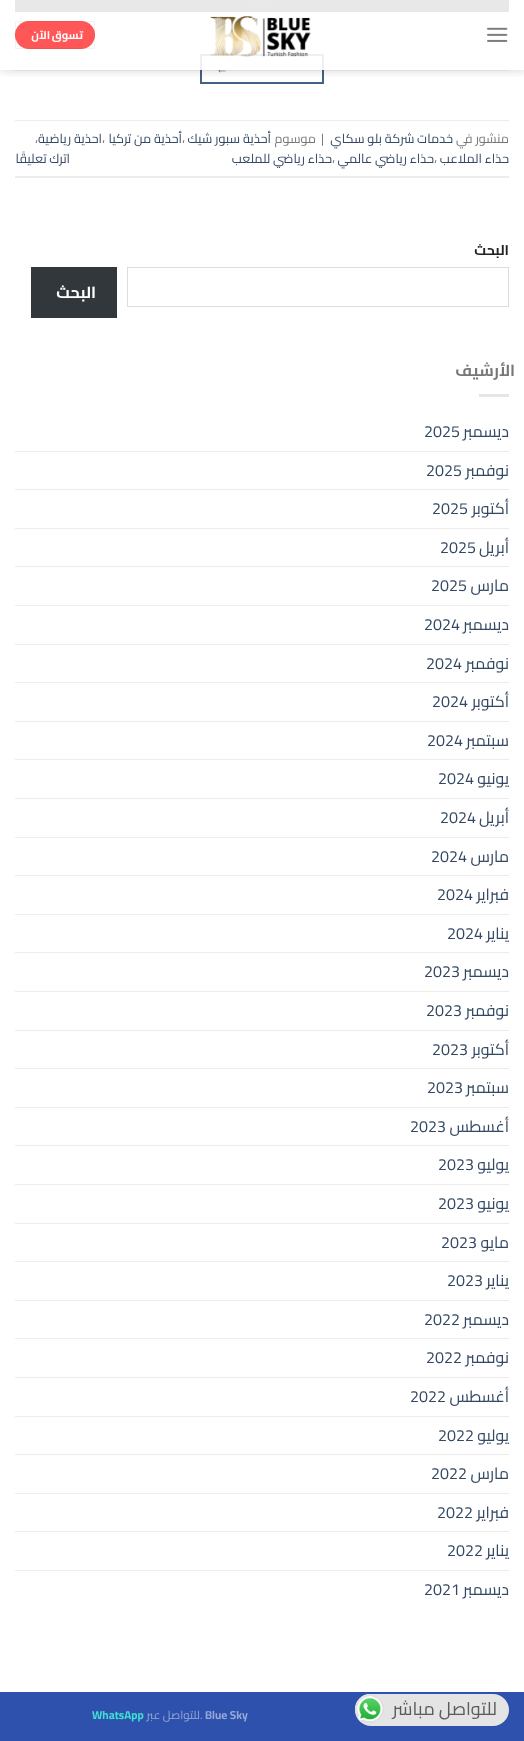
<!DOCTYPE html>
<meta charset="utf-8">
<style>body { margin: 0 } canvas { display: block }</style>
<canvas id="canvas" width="524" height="1741"></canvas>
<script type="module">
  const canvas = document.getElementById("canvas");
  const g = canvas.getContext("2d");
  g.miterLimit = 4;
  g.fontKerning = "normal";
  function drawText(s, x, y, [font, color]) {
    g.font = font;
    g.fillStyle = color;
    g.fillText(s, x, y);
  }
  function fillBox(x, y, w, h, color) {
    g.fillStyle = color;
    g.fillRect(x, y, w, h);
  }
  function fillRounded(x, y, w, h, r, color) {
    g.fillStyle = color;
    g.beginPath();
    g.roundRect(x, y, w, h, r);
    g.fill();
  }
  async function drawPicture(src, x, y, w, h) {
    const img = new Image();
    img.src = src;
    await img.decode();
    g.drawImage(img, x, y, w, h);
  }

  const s1 = ["bold 12px Liberation Sans", "#446084"];
  const s2 = ["bold 11px Cairo", "#FFFFFF"];
  const s3 = ["12.75px Cairo", "#777777"];
  const s4 = ["12.75px Cairo", "#334862"];
  const s5 = ["bold 14px Cairo", "#222222"];
  const s6 = ["bold 16px Cairo", "#FFFFFF"];
  const s7 = ["bold 16px Cairo", "#777777"];
  const s8 = ["16px Cairo", "#334862"];
  const s9 = ["bold 11.5px Cairo", "#97A8D7"];
  const s10 = ["11.5px Cairo", "#97A8D7"];
  const s11 = ["bold 11.5px Cairo", "#40E0D0"];
  const s12 = ["18px Cairo", "#5B5B5B"];

  fillBox(0, 0, 524, 1741, "#FFFFFF");
  await drawPicture("pic3.png", 15, 0, 494, 12);
  g.strokeStyle = "#446084";
  g.lineWidth = 2;
  g.strokeRect(201, 55, 122, 28);
  g.save();
  g.beginPath();
  g.rect(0, 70, 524, 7);
  g.clip();
  g.fillStyle = "rgba(0, 0, 0, 0.15)";
  g.filter = "blur(5px)";
  g.beginPath();
  g.rect(1, 1, 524, 70);
  g.fill();
  g.filter = "none";
  g.restore();
  drawText("←", 216, 73, s1);
  fillBox(15, 0, 494, 70, "rgba(255, 255, 255, 0.9)");
  await drawPicture("pic1.png", 487, 27, 21, 15);
  await drawPicture("pic2.png", 210, 16, 101, 41);
  fillRounded(15, 21, 80, 28, 14, "#FF5757");
  g.strokeStyle = "rgba(0, 0, 0, 0.05)";
  g.lineWidth = 1;
  g.strokeRect(15.5, 21.5, 79, 27);
  g.letterSpacing = "0.25px";
  g.wordSpacing = "-1px";
  g.direction = "rtl";
  drawText("تسوق الآن", 83, 39, s2);
  fillBox(15, 70, 494, 1, "rgba(119, 119, 119, 0.1)");
  fillBox(15, 120, 494, 1, "#ECECEC");
  fillBox(15, 176, 494, 2, "#ECECEC");
  g.letterSpacing = "0px";
  g.wordSpacing = "0px";
  drawText("منشور في", 509, 143, s3);
  drawText("خدمات شركة بلو سكاي", 453, 143, s4);
  g.direction = "ltr";
  drawText("|", 321, 143, s3);
  g.direction = "rtl";
  drawText("موسوم", 316, 143, s3);
  drawText("أحذية سبور شيك", 271, 143, s4);
  g.direction = "ltr";
  drawText("،", 182, 143, s3);
  g.direction = "rtl";
  drawText("أحذية من تركيا", 182, 143, s4);
  g.direction = "ltr";
  drawText("،", 102, 143, s3);
  g.direction = "rtl";
  drawText("احذية رياضية", 102, 143, s4);
  g.direction = "ltr";
  drawText("،", 35, 143, s3);
  g.direction = "rtl";
  drawText("حذاء الملاعب", 509, 163, s4);
  g.direction = "ltr";
  drawText("،", 434, 163, s3);
  g.direction = "rtl";
  drawText("حذاء رياضي عالمي", 434, 163, s4);
  g.direction = "ltr";
  drawText("،", 332, 163, s3);
  g.direction = "rtl";
  drawText("حذاء رياضي للملعب", 332, 163, s4);
  drawText("اترك تعليقًا", 70, 163, s4);
  drawText("البحث", 509, 255, s5);
  g.strokeStyle = "#DDDDDD";
  g.strokeRect(127.5, 267.5, 381, 39);
  fillBox(31, 267, 86, 51, "#32373C");
  g.letterSpacing = "0.5px";
  drawText("البحث", 96, 298, s6);
  g.letterSpacing = "0.75px";
  drawText("الأرشيف", 515, 376, s7);
  fillBox(479, 394, 30, 3, "#E6E6E6");
  g.letterSpacing = "0px";
  drawText("ديسمبر", 509, 437, s8);
  g.direction = "ltr";
  drawText("2025", 424, 437, s8);
  fillBox(15, 451, 494, 1, "#ECECEC");
  g.direction = "rtl";
  drawText("نوفمبر", 509, 476, s8);
  g.direction = "ltr";
  drawText("2025", 426, 476, s8);
  fillBox(15, 489, 494, 1, "#ECECEC");
  g.direction = "rtl";
  drawText("أكتوبر", 509, 514, s8);
  g.direction = "ltr";
  drawText("2025", 432, 514, s8);
  fillBox(15, 528, 494, 1, "#ECECEC");
  g.direction = "rtl";
  drawText("أبريل", 509, 553, s8);
  g.direction = "ltr";
  drawText("2025", 440, 553, s8);
  fillBox(15, 566, 494, 1, "#ECECEC");
  g.direction = "rtl";
  drawText("مارس", 509, 591, s8);
  g.direction = "ltr";
  drawText("2025", 431, 591, s8);
  fillBox(15, 605, 494, 1, "#ECECEC");
  g.direction = "rtl";
  drawText("ديسمبر", 509, 630, s8);
  g.direction = "ltr";
  drawText("2024", 424, 630, s8);
  fillBox(15, 644, 494, 1, "#ECECEC");
  g.direction = "rtl";
  drawText("نوفمبر", 509, 669, s8);
  g.direction = "ltr";
  drawText("2024", 426, 669, s8);
  fillBox(15, 682, 494, 1, "#ECECEC");
  g.direction = "rtl";
  drawText("أكتوبر", 509, 707, s8);
  g.direction = "ltr";
  drawText("2024", 432, 707, s8);
  fillBox(15, 721, 494, 1, "#ECECEC");
  g.direction = "rtl";
  drawText("سبتمبر", 509, 746, s8);
  g.direction = "ltr";
  drawText("2024", 427, 746, s8);
  fillBox(15, 759, 494, 1, "#ECECEC");
  g.direction = "rtl";
  drawText("يونيو", 509, 784, s8);
  g.direction = "ltr";
  drawText("2024", 438, 784, s8);
  fillBox(15, 798, 494, 1, "#ECECEC");
  g.direction = "rtl";
  drawText("أبريل", 509, 823, s8);
  g.direction = "ltr";
  drawText("2024", 440, 823, s8);
  fillBox(15, 837, 494, 1, "#ECECEC");
  g.direction = "rtl";
  drawText("مارس", 509, 862, s8);
  g.direction = "ltr";
  drawText("2024", 431, 862, s8);
  fillBox(15, 875, 494, 1, "#ECECEC");
  g.direction = "rtl";
  drawText("فبراير", 509, 900, s8);
  g.direction = "ltr";
  drawText("2024", 437, 900, s8);
  fillBox(15, 914, 494, 1, "#ECECEC");
  g.direction = "rtl";
  drawText("يناير", 509, 939, s8);
  g.direction = "ltr";
  drawText("2024", 447, 939, s8);
  fillBox(15, 952, 494, 1, "#ECECEC");
  g.direction = "rtl";
  drawText("ديسمبر", 509, 977, s8);
  g.direction = "ltr";
  drawText("2023", 424, 977, s8);
  fillBox(15, 991, 494, 1, "#ECECEC");
  g.direction = "rtl";
  drawText("نوفمبر", 509, 1016, s8);
  g.direction = "ltr";
  drawText("2023", 426, 1016, s8);
  fillBox(15, 1030, 494, 1, "#ECECEC");
  g.direction = "rtl";
  drawText("أكتوبر", 509, 1055, s8);
  g.direction = "ltr";
  drawText("2023", 432, 1055, s8);
  fillBox(15, 1068, 494, 1, "#ECECEC");
  g.direction = "rtl";
  drawText("سبتمبر", 509, 1093, s8);
  g.direction = "ltr";
  drawText("2023", 427, 1093, s8);
  fillBox(15, 1107, 494, 1, "#ECECEC");
  g.direction = "rtl";
  drawText("أغسطس", 509, 1132, s8);
  g.direction = "ltr";
  drawText("2023", 410, 1132, s8);
  fillBox(15, 1145, 494, 1, "#ECECEC");
  g.direction = "rtl";
  drawText("يوليو", 509, 1170, s8);
  g.direction = "ltr";
  drawText("2023", 438, 1170, s8);
  fillBox(15, 1184, 494, 1, "#ECECEC");
  g.direction = "rtl";
  drawText("يونيو", 509, 1209, s8);
  g.direction = "ltr";
  drawText("2023", 438, 1209, s8);
  fillBox(15, 1223, 494, 1, "#ECECEC");
  g.direction = "rtl";
  drawText("مايو", 509, 1248, s8);
  g.direction = "ltr";
  drawText("2023", 441, 1248, s8);
  fillBox(15, 1261, 494, 1, "#ECECEC");
  g.direction = "rtl";
  drawText("يناير", 509, 1286, s8);
  g.direction = "ltr";
  drawText("2023", 447, 1286, s8);
  fillBox(15, 1300, 494, 1, "#ECECEC");
  g.direction = "rtl";
  drawText("ديسمبر", 509, 1325, s8);
  g.direction = "ltr";
  drawText("2022", 424, 1325, s8);
  fillBox(15, 1338, 494, 1, "#ECECEC");
  g.direction = "rtl";
  drawText("نوفمبر", 509, 1363, s8);
  g.direction = "ltr";
  drawText("2022", 426, 1363, s8);
  fillBox(15, 1377, 494, 1, "#ECECEC");
  g.direction = "rtl";
  drawText("أغسطس", 509, 1402, s8);
  g.direction = "ltr";
  drawText("2022", 410, 1402, s8);
  fillBox(15, 1416, 494, 1, "#ECECEC");
  g.direction = "rtl";
  drawText("يوليو", 509, 1441, s8);
  g.direction = "ltr";
  drawText("2022", 438, 1441, s8);
  fillBox(15, 1454, 494, 1, "#ECECEC");
  g.direction = "rtl";
  drawText("مارس", 509, 1479, s8);
  g.direction = "ltr";
  drawText("2022", 431, 1479, s8);
  fillBox(15, 1493, 494, 1, "#ECECEC");
  g.direction = "rtl";
  drawText("فبراير", 509, 1518, s8);
  g.direction = "ltr";
  drawText("2022", 437, 1518, s8);
  fillBox(15, 1531, 494, 1, "#ECECEC");
  g.direction = "rtl";
  drawText("يناير", 509, 1556, s8);
  g.direction = "ltr";
  drawText("2022", 447, 1556, s8);
  fillBox(15, 1570, 494, 1, "#ECECEC");
  g.direction = "rtl";
  drawText("ديسمبر", 509, 1595, s8);
  g.direction = "ltr";
  drawText("2021", 424, 1595, s8);
  fillBox(0, 1692, 524, 49, "#2E51AE");
  drawText("Blue Sky", 205, 1719, s9);
  drawText(".", 200, 1719, s10);
  g.direction = "rtl";
  drawText("للتواصل عبر", 200, 1719, s10);
  g.direction = "ltr";
  drawText("WhatsApp", 92, 1719, s11);
  await drawPicture("pic5.png", 355, 1694, 16, 24);
  fillRounded(355, 1694, 154, 32, 16, "#E4E4E4");
  g.direction = "rtl";
  drawText("للتواصل مباشر", 497, 1715, s12);
  await drawPicture("pic4.png", 356, 1695, 28, 28);
</script>
